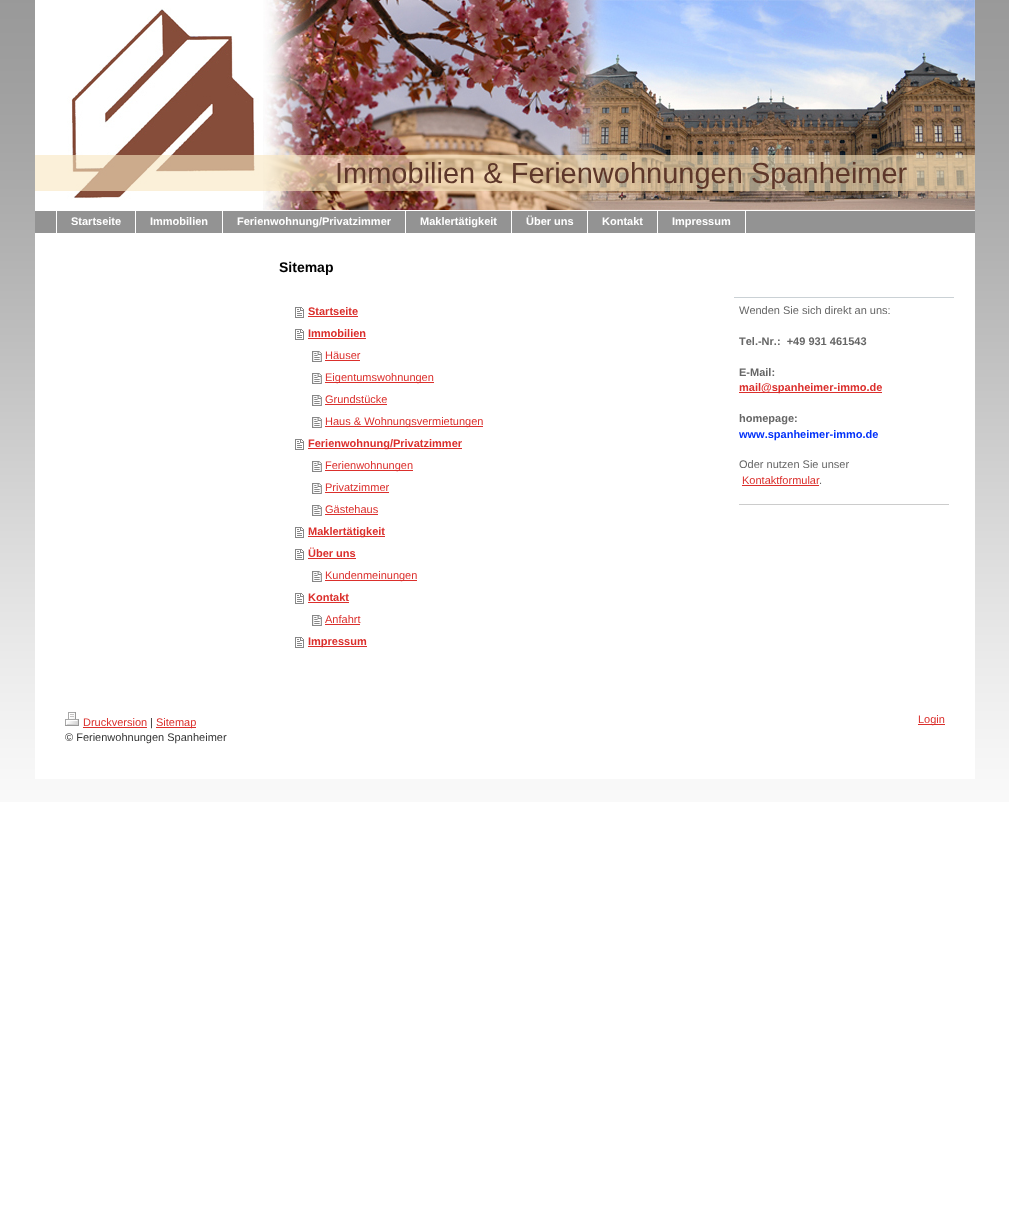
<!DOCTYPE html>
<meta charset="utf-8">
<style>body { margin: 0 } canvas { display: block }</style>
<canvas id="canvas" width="1009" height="1229"></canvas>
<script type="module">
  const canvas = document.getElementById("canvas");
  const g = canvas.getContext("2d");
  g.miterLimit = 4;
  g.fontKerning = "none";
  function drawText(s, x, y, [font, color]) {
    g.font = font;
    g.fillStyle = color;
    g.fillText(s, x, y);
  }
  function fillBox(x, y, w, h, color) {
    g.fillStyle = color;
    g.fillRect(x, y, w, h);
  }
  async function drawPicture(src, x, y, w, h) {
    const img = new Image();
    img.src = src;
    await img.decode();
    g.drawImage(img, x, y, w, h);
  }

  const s1 = ["29px Liberation Sans", "#5D372A"];
  const s2 = ["bold 11px Liberation Sans", "#FFFFFF"];
  const s3 = ["bold 14px Liberation Sans", "#000000"];
  const s4 = ["bold 11px Liberation Sans", "#DB2F2C"];
  const s5 = ["11px Liberation Sans", "#DB2F2C"];
  const s6 = ["11px Liberation Sans", "#666666"];
  const s7 = ["bold 11px Liberation Sans", "#666666"];
  const s8 = ["bold 11px Liberation Sans", "#0231F9"];
  const s9 = ["11px Liberation Sans", "#333333"];

  fillBox(0, 0, 1009, 1229, "#FFFFFF");
  await drawPicture("pic1.png", 0, 0, 1009, 802);
  fillBox(35, 210, 940, 569, "#FFFFFF");
  await drawPicture("pic2.png", 35, 0, 940, 210);
  fillBox(35, 155, 940, 36, "rgba(249, 231, 193, 0.61)");
  drawText("Immobilien & Ferienwohnungen Spanheimer", 335, 183, s1);
  fillBox(35, 211, 940, 22, "#939393");
  fillBox(56, 210, 1, 23, "#FFFFFF");
  fillBox(135, 210, 1, 24, "#FFFFFF");
  drawText("Startseite", 71, 225, s2);
  fillBox(222, 210, 1, 24, "#FFFFFF");
  drawText("Immobilien", 150, 225, s2);
  fillBox(405, 210, 1, 24, "#FFFFFF");
  drawText("Ferienwohnung/Privatzimmer", 237, 225, s2);
  fillBox(511, 210, 1, 24, "#FFFFFF");
  drawText("Maklertätigkeit", 420, 225, s2);
  fillBox(587, 210, 1, 24, "#FFFFFF");
  drawText("Über uns", 526, 225, s2);
  fillBox(657, 210, 1, 24, "#FFFFFF");
  drawText("Kontakt", 602, 225, s2);
  fillBox(745, 210, 1, 24, "#FFFFFF");
  drawText("Impressum", 672, 225, s2);
  drawText("Sitemap", 279, 272, s3);
  await drawPicture("pic3.png", 295, 307, 9, 11);
  drawText("Startseite", 308, 315, s4);
  fillBox(308, 316, 50, 1, "#DB2F2C");
  await drawPicture("pic3.png", 295, 329, 9, 11);
  drawText("Immobilien", 308, 337, s4);
  fillBox(308, 338, 58, 1, "#DB2F2C");
  await drawPicture("pic4.png", 312, 351, 10, 11);
  drawText("Häuser", 325, 359, s5);
  fillBox(325, 360, 35, 1, "#DB2F2C");
  await drawPicture("pic4.png", 312, 373, 10, 11);
  fillBox(325, 382, 109, 1, "#DB2F2C");
  drawText("Eigentumswohnungen", 325, 381, s5);
  await drawPicture("pic4.png", 312, 395, 10, 11);
  drawText("Grundstücke", 325, 403, s5);
  fillBox(325, 404, 62, 1, "#DB2F2C");
  await drawPicture("pic4.png", 312, 417, 10, 11);
  fillBox(325, 426, 158, 1, "#DB2F2C");
  drawText("Haus & Wohnungsvermietungen", 325, 425, s5);
  await drawPicture("pic3.png", 295, 439, 9, 11);
  fillBox(308, 448, 154, 1, "#DB2F2C");
  drawText("Ferienwohnung/Privatzimmer", 308, 447, s4);
  await drawPicture("pic4.png", 312, 461, 10, 11);
  fillBox(325, 470, 88, 1, "#DB2F2C");
  drawText("Ferienwohnungen", 325, 469, s5);
  await drawPicture("pic4.png", 312, 483, 10, 11);
  drawText("Privatzimmer", 325, 491, s5);
  fillBox(325, 492, 64, 1, "#DB2F2C");
  await drawPicture("pic4.png", 312, 505, 10, 11);
  drawText("Gästehaus", 325, 513, s5);
  fillBox(325, 514, 53, 1, "#DB2F2C");
  await drawPicture("pic3.png", 295, 527, 9, 11);
  fillBox(308, 536, 77, 1, "#DB2F2C");
  drawText("Maklertätigkeit", 308, 535, s4);
  await drawPicture("pic3.png", 295, 549, 9, 11);
  drawText("Über uns", 308, 557, s4);
  fillBox(308, 558, 48, 1, "#DB2F2C");
  await drawPicture("pic4.png", 312, 571, 10, 11);
  fillBox(325, 580, 92, 1, "#DB2F2C");
  drawText("Kundenmeinungen", 325, 579, s5);
  await drawPicture("pic3.png", 295, 593, 9, 11);
  drawText("Kontakt", 308, 601, s4);
  fillBox(308, 602, 41, 1, "#DB2F2C");
  await drawPicture("pic4.png", 312, 615, 10, 11);
  drawText("Anfahrt", 325, 623, s5);
  fillBox(325, 624, 35, 1, "#DB2F2C");
  await drawPicture("pic3.png", 295, 637, 9, 11);
  fillBox(308, 646, 59, 1, "#DB2F2C");
  drawText("Impressum", 308, 645, s4);
  fillBox(734, 297, 220, 1, "#CAD1D5");
  drawText("Wenden Sie sich direkt an uns:", 739, 314, s6);
  drawText("Tel.-Nr.:  +49 931 461543", 739, 345, s7);
  drawText("E-Mail:", 739, 376, s7);
  fillBox(739, 392, 143, 1, "#DB2F2C");
  drawText("mail@spanheimer-immo.de", 739, 391, s4);
  drawText("homepage:", 739, 422, s7);
  drawText("www.spanheimer-immo.de", 739, 438, s8);
  drawText("Oder nutzen Sie unser", 739, 468, s6);
  drawText("Kontaktformular", 742, 484, s5);
  fillBox(742, 485, 77, 1, "#DB2F2C");
  drawText(".", 819, 484, s6);
  fillBox(739, 504, 210, 1, "#CCCCCC");
  await drawPicture("pic5.png", 65, 712, 14, 14);
  drawText("Druckversion", 83, 726, s5);
  fillBox(83, 727, 64, 1, "#DB2F2C");
  drawText("|", 150, 726, s9);
  fillBox(156, 727, 40, 1, "#DB2F2C");
  drawText("Sitemap", 156, 726, s5);
  g.save();
  g.beginPath();
  g.rect(65, 712, 880, 49);
  g.clip();
  drawText("© Ferienwohnungen Spanheimer", 65, 741, s9);
  g.restore();
  fillBox(918, 724, 27, 1, "#DB2F2C");
  drawText("Login", 918, 723, s5);
</script>
